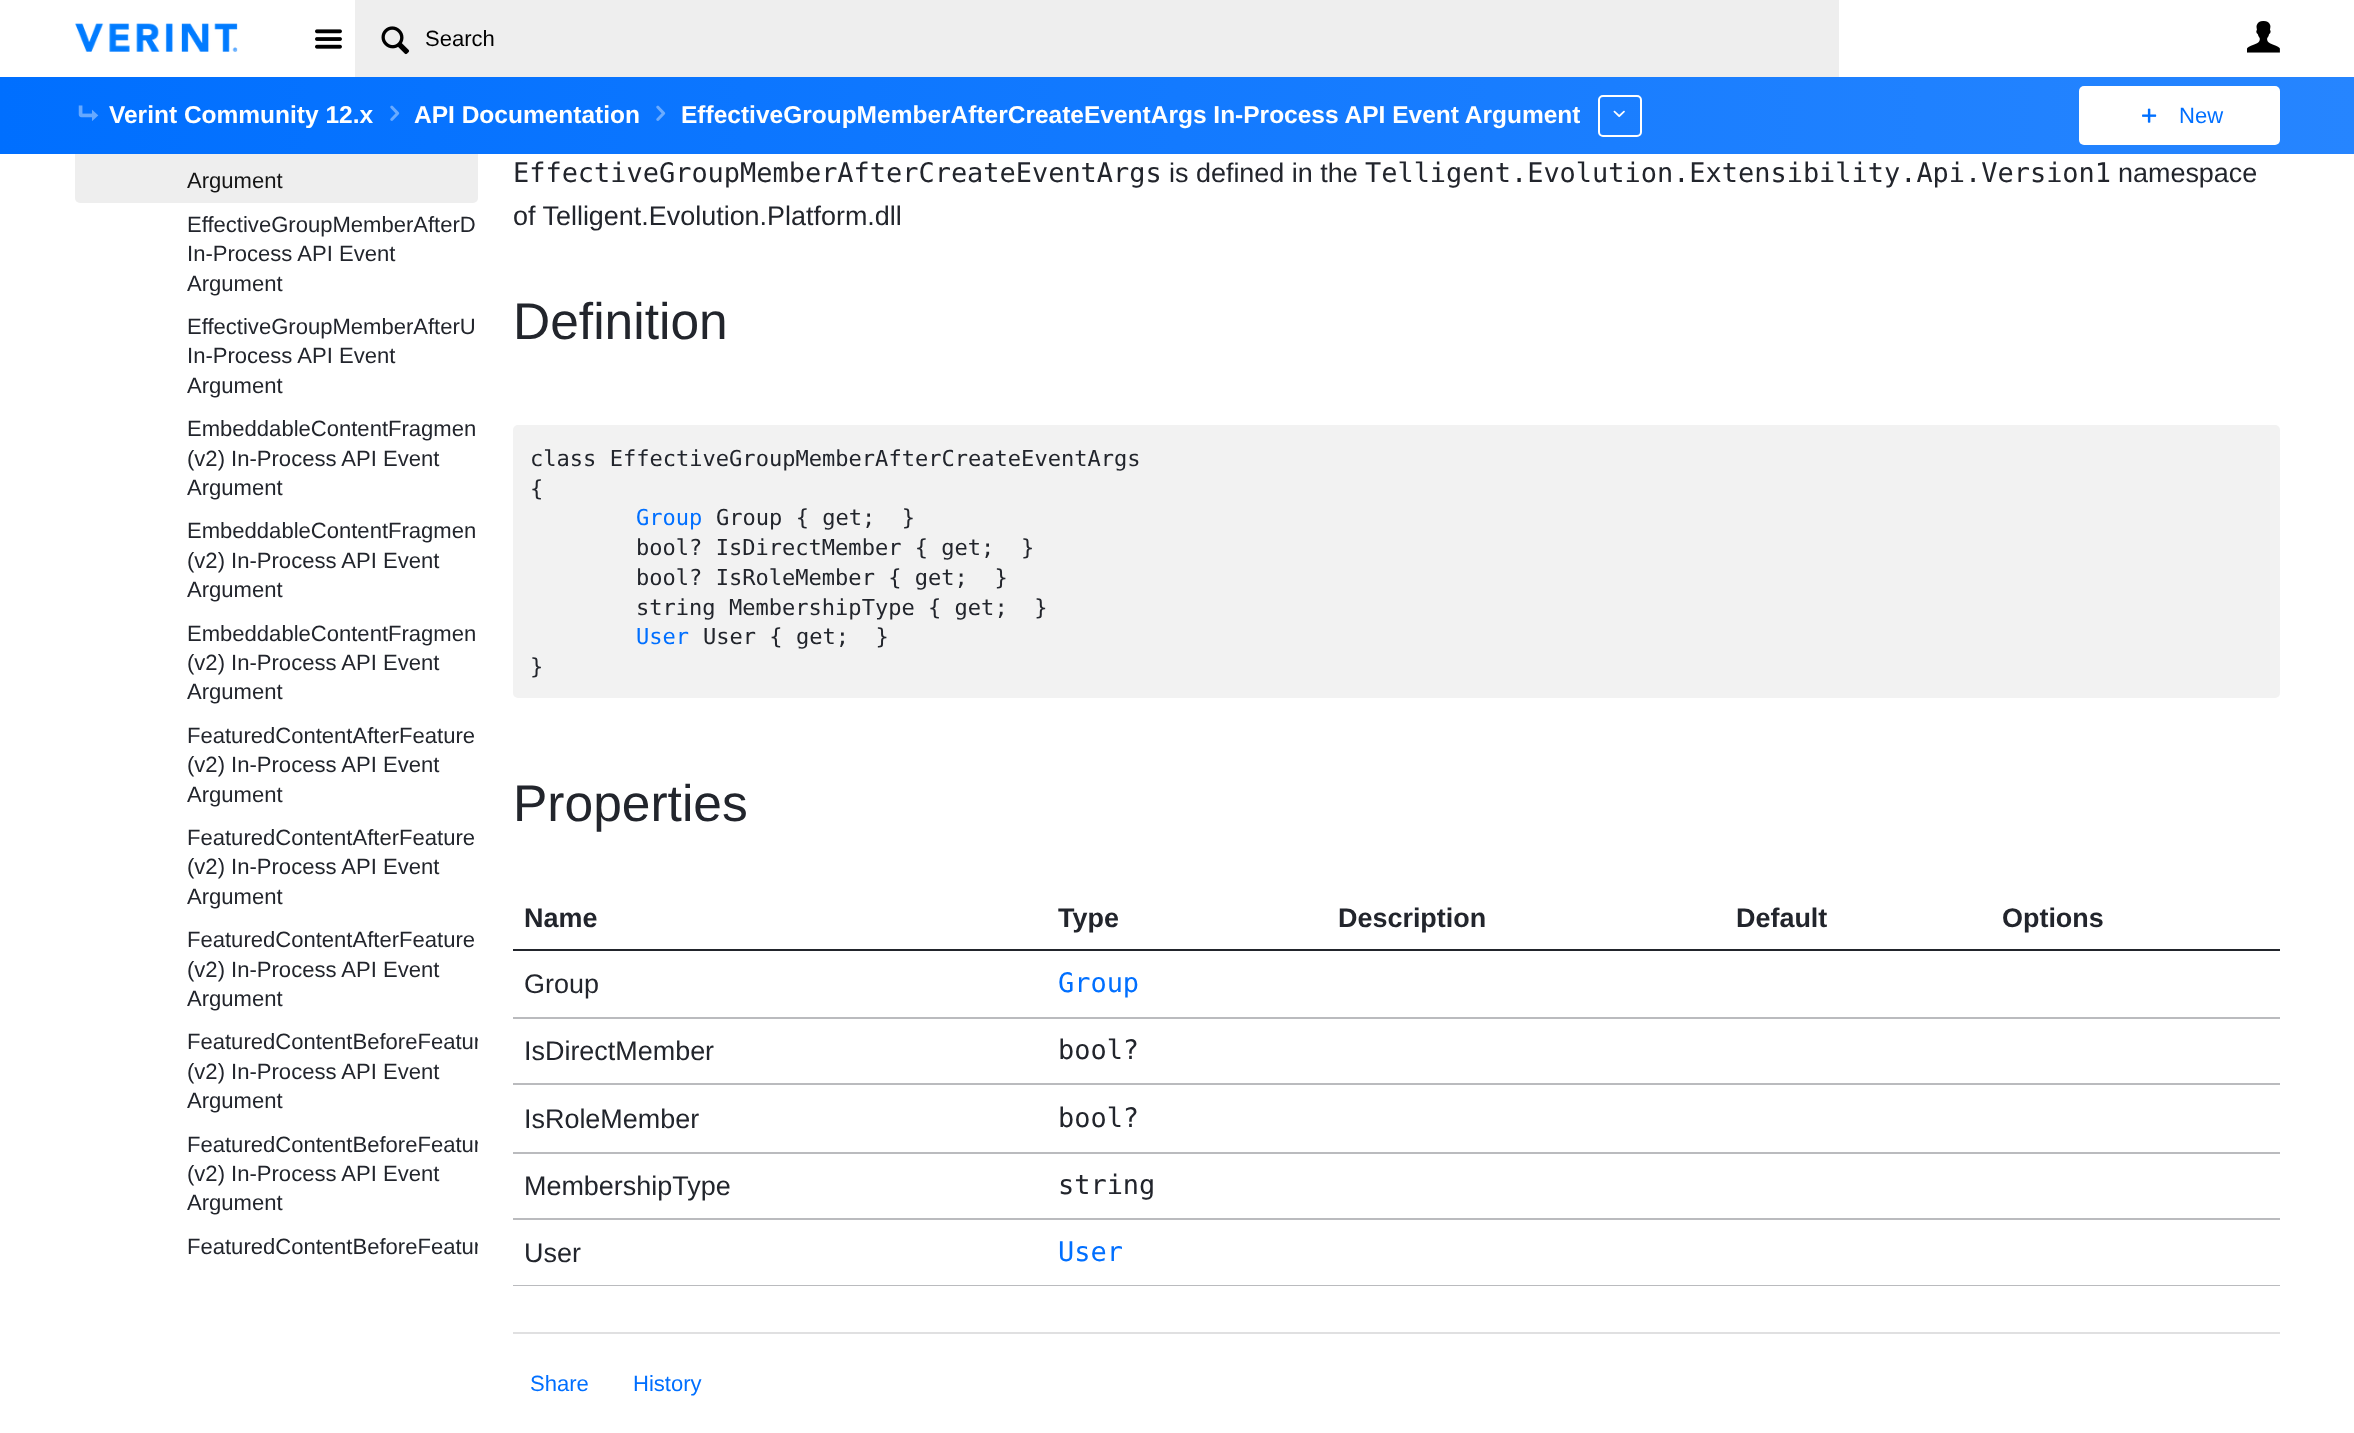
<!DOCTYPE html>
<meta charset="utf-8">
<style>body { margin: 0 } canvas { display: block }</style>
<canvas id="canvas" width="2354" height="1433"></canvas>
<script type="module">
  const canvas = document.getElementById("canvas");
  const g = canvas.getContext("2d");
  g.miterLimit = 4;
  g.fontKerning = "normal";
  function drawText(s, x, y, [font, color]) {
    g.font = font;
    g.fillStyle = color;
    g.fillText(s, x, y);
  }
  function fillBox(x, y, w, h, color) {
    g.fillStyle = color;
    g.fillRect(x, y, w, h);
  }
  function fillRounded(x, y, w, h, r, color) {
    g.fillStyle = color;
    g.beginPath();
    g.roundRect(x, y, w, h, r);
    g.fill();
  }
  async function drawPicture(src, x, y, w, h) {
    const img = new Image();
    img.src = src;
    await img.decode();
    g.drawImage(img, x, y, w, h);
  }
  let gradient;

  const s1 = ["22.05px Liberation Sans", "#000000"];
  const s2 = ["bold 24.5px Liberation Sans", "#FFFFFF"];
  const s3 = ["22.05px Liberation Sans", "#006FFF"];
  const s4 = ["22.05px Liberation Sans", "#151515"];
  const s5 = ["22.05px Liberation Sans", "#22252C"];
  const s6 = ["26.95px DejaVu Sans Mono", "#22252C"];
  const s7 = ["26.95px Liberation Sans", "#22252C"];
  const s8 = ["51.5px Liberation Sans", "#22252C"];
  const s9 = ["22.05px DejaVu Sans Mono", "#22252C"];
  const s10 = ["22.05px DejaVu Sans Mono", "#006FFF"];
  const s11 = ["bold 26.95px Liberation Sans", "#22252C"];
  const s12 = ["26.95px DejaVu Sans Mono", "#006FFF"];

  fillBox(0, 0, 2354, 1433, "#FFFFFF");
  await drawPicture("pic1.png", 75, 23, 163, 29);
  await drawPicture("pic2.png", 315, 29, 27, 20);
  fillBox(355, 0, 1484, 77, "#EEEEEE");
  await drawPicture("pic3.png", 381, 26, 29, 29);
  drawText("Search", 425, 46, s1);
  await drawPicture("pic4.png", 2247, 21, 33, 32);
  fillRounded(75, 102, 403, 101, 5, "#EEEEEE");
  gradient = g.createLinearGradient(0, 116, 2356, 115);
  gradient.addColorStop(0, "#006FFF");
  gradient.addColorStop(1, "#2685FF");
  g.fillStyle = gradient;
  g.fillRect(0, 77, 2354, 77);
  await drawPicture("pic5.png", 78, 105, 21, 16);
  drawText("Verint Community 12.x", 109, 123, s2);
  await drawPicture("pic6.png", 390, 105, 10, 16);
  drawText("API Documentation", 414, 123, s2);
  await drawPicture("pic7.png", 656, 105, 10, 16);
  g.save();
  g.beginPath();
  g.rect(639, 98, 941, 35);
  g.clip();
  drawText("EffectiveGroupMemberAfterCreateEventArgs In-Process API Event Argument", 681, 123, s2);
  g.restore();
  g.beginPath();
  g.roundRect(1599, 96, 42, 40, 4);
  g.strokeStyle = "#FFFFFF";
  g.lineWidth = 2;
  g.stroke();
  await drawPicture("pic8.png", 1613, 110, 12, 8);
  fillRounded(2079, 86, 201, 59, 5, "#FFFFFF");
  await drawPicture("pic9.png", 2142, 108, 15, 15);
  drawText("New", 2179, 123, s3);
  drawText("Argument", 187, 188, s4);
  drawText("EffectiveGroupMemberAfterD", 187, 232, s5);
  drawText("In-Process API Event", 187, 261, s5);
  drawText("Argument", 187, 291, s5);
  drawText("EffectiveGroupMemberAfterU", 187, 334, s5);
  drawText("In-Process API Event", 187, 363, s5);
  drawText("Argument", 187, 393, s5);
  drawText("EmbeddableContentFragmen", 187, 436, s5);
  drawText("(v2) In-Process API Event", 187, 466, s5);
  drawText("Argument", 187, 495, s5);
  drawText("EmbeddableContentFragmen", 187, 538, s5);
  drawText("(v2) In-Process API Event", 187, 568, s5);
  drawText("Argument", 187, 597, s5);
  drawText("EmbeddableContentFragmen", 187, 641, s5);
  drawText("(v2) In-Process API Event", 187, 670, s5);
  drawText("Argument", 187, 699, s5);
  drawText("FeaturedContentAfterFeature", 187, 743, s5);
  drawText("(v2) In-Process API Event", 187, 772, s5);
  drawText("Argument", 187, 802, s5);
  drawText("FeaturedContentAfterFeature", 187, 845, s5);
  drawText("(v2) In-Process API Event", 187, 874, s5);
  drawText("Argument", 187, 904, s5);
  drawText("FeaturedContentAfterFeature", 187, 947, s5);
  drawText("(v2) In-Process API Event", 187, 977, s5);
  drawText("Argument", 187, 1006, s5);
  g.save();
  g.beginPath();
  g.rect(75, 0, 403, 1262);
  g.clip();
  drawText("FeaturedContentBeforeFeatur", 187, 1049, s5);
  g.restore();
  drawText("(v2) In-Process API Event", 187, 1079, s5);
  drawText("Argument", 187, 1108, s5);
  g.save();
  g.beginPath();
  g.rect(75, 0, 403, 1262);
  g.clip();
  drawText("FeaturedContentBeforeFeatur", 187, 1152, s5);
  g.restore();
  drawText("(v2) In-Process API Event", 187, 1181, s5);
  drawText("Argument", 187, 1210, s5);
  g.save();
  g.beginPath();
  g.rect(75, 0, 403, 1262);
  g.clip();
  drawText("FeaturedContentBeforeFeatur", 187, 1254, s5);
  g.restore();
  drawText("EffectiveGroupMemberAfterCreateEventArgs", 513, 182, s6);
  drawText("is defined in the", 1169, 182, s7);
  drawText("Telligent.Evolution.Extensibility.Api.Version1", 1365, 182, s6);
  drawText("namespace", 2118, 182, s7);
  drawText("of Telligent.Evolution.Platform.dll", 513, 225, s7);
  drawText("Definition", 513, 339, s8);
  fillRounded(513, 425, 1767, 273, 5, "#F2F2F2");
  drawText("class EffectiveGroupMemberAfterCreateEventArgs", 530, 466, s9);
  drawText("{", 530, 496, s9);
  drawText("Group", 636, 525, s10);
  drawText("Group { get;  }", 716, 525, s9);
  drawText("bool? IsDirectMember { get;  }", 636, 555, s9);
  drawText("bool? IsRoleMember { get;  }", 636, 585, s9);
  drawText("string MembershipType { get;  }", 636, 615, s9);
  drawText("User", 636, 644, s10);
  drawText("User { get;  }", 703, 644, s9);
  drawText("}", 530, 674, s9);
  drawText("Properties", 513, 821, s8);
  drawText("Name", 524, 927, s11);
  drawText("Type", 1058, 927, s11);
  drawText("Description", 1338, 927, s11);
  drawText("Default", 1736, 927, s11);
  fillBox(513, 949, 1767, 2, "#22252C");
  drawText("Options", 2002, 927, s11);
  drawText("Group", 524, 993, s7);
  drawText("Group", 1058, 992, s12);
  fillBox(513, 1017, 1767, 2, "#BABBBE");
  drawText("IsDirectMember", 524, 1060, s7);
  drawText("bool?", 1058, 1059, s6);
  fillBox(513, 1083, 1767, 2, "#BABBBE");
  drawText("IsRoleMember", 524, 1128, s7);
  drawText("bool?", 1058, 1127, s6);
  fillBox(513, 1152, 1767, 2, "#BABBBE");
  drawText("MembershipType", 524, 1195, s7);
  drawText("string", 1058, 1194, s6);
  fillBox(513, 1218, 1767, 2, "#BABBBE");
  drawText("User", 524, 1262, s7);
  drawText("User", 1058, 1261, s12);
  fillBox(513, 1285, 1767, 1, "#BABBBE");
  fillBox(513, 1332, 1767, 2, "#E0E0E1");
  drawText("Share", 530, 1391, s3);
  drawText("History", 633, 1391, s3);
</script>
